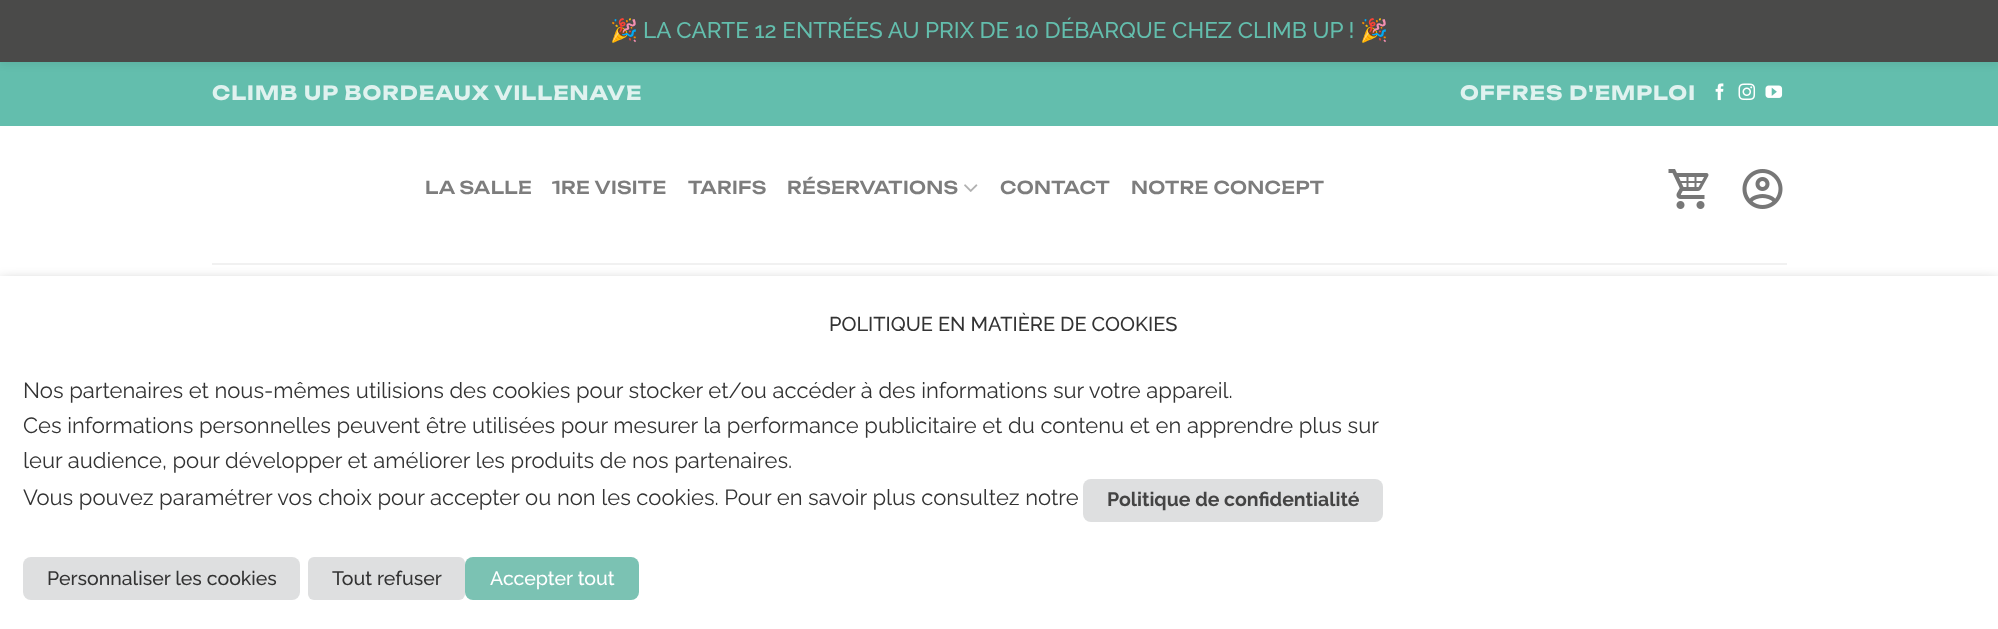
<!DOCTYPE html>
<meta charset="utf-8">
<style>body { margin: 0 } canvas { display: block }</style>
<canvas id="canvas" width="1998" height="629"></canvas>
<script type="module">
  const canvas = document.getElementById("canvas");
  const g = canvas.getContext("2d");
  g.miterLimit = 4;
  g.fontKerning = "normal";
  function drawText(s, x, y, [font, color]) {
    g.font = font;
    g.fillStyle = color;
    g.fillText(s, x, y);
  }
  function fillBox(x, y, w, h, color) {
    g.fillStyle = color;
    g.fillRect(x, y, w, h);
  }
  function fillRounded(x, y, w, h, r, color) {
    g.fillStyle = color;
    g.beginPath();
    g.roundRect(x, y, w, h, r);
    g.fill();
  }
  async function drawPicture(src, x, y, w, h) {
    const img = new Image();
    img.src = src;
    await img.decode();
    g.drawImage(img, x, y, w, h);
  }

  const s1 = ["22.5px Noto Color Emoji", "#63BEAD"];
  const s2 = ["500 22.5px Raleway", "#63BEAD"];
  const s3 = ["bold 19.5px Unbounded", "#E0F2EF"];
  const s4 = ["500 17.75px Unbounded", "#7D7D7D"];
  const s5 = ["500 20px Raleway", "#333333"];
  const s6 = ["22px Raleway", "#333333"];
  const s7 = ["bold 19.5px Raleway", "#444444"];
  const s8 = ["500 19.5px Raleway", "#333333"];
  const s9 = ["500 19.5px Raleway", "#FFFFFF"];

  fillBox(0, 0, 1998, 629, "#FFFFFF");
  fillBox(0, 62, 1998, 64, "#63BEAD");
  g.fillStyle = "rgba(0, 0, 0, 0.05)";
  g.filter = "blur(3px)";
  g.beginPath();
  g.rect(0, 5, 1998, 61);
  g.fill();
  g.filter = "none";
  fillBox(0, 0, 1998, 62, "#4A4A49");
  drawText("🎉", 610, 38, s1);
  drawText("LA CARTE 12 ENTRÉES AU PRIX DE 10 DÉBARQUE CHEZ CLIMB UP !", 643, 38, s2);
  drawText("🎉", 1360, 38, s1);
  g.letterSpacing = "1px";
  drawText("CLIMB UP BORDEAUX VILLENAVE", 212, 100, s3);
  drawText("OFFRES D'EMPLOI", 1460, 100, s3);
  await drawPicture("pic1.png", 1715, 83, 9, 18);
  await drawPicture("pic2.png", 1738, 83, 18, 18);
  await drawPicture("pic3.png", 1765, 85, 18, 13);
  g.letterSpacing = "0.3px";
  drawText("LA SALLE", 425, 194, s4);
  drawText("1RE VISITE", 552, 194, s4);
  drawText("TARIFS", 688, 194, s4);
  drawText("RÉSERVATIONS", 787, 194, s4);
  await drawPicture("pic4.png", 964, 184, 14, 8);
  drawText("CONTACT", 1000, 194, s4);
  drawText("NOTRE CONCEPT", 1131, 194, s4);
  await drawPicture("pic5.png", 1668, 169, 41, 40);
  await drawPicture("pic6.png", 1742, 169, 41, 40);
  fillBox(212, 263, 1575, 2, "#F1F1F1");
  g.fillStyle = "rgba(0, 0, 0, 0.5)";
  g.filter = "blur(7.5px)";
  g.beginPath();
  g.rect(0, 284, 1998, 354);
  g.fill();
  g.filter = "none";
  fillBox(0, 276, 1998, 353, "#FFFFFF");
  g.letterSpacing = "0px";
  drawText("POLITIQUE EN MATIÈRE DE COOKIES", 829, 331, s5);
  drawText("Nos partenaires et nous-mêmes utilisions des cookies pour stocker et/ou accéder à des informations sur votre appareil.", 23, 398, s6);
  drawText("Ces informations personnelles peuvent être utilisées pour mesurer la performance publicitaire et du contenu et en apprendre plus sur", 23, 433, s6);
  drawText("leur audience, pour développer et améliorer les produits de nos partenaires.", 23, 468, s6);
  drawText("Vous pouvez paramétrer vos choix pour accepter ou non les cookies. Pour en savoir plus consultez notre", 23, 505, s6);
  fillRounded(1083, 479, 300, 43, 8, "#DEDFE0");
  drawText("Politique de confidentialité", 1107, 506, s7);
  fillRounded(23, 557, 277, 43, 8, "#DEDFE0");
  drawText("Personnaliser les cookies", 47, 585, s8);
  fillRounded(308, 557, 157, 43, 6, "#DEDFE0");
  drawText("Tout refuser", 332, 585, s8);
  fillRounded(465, 557, 174, 43, 8, "#7BC2B3");
  drawText("Accepter tout", 490, 585, s9);
</script>
